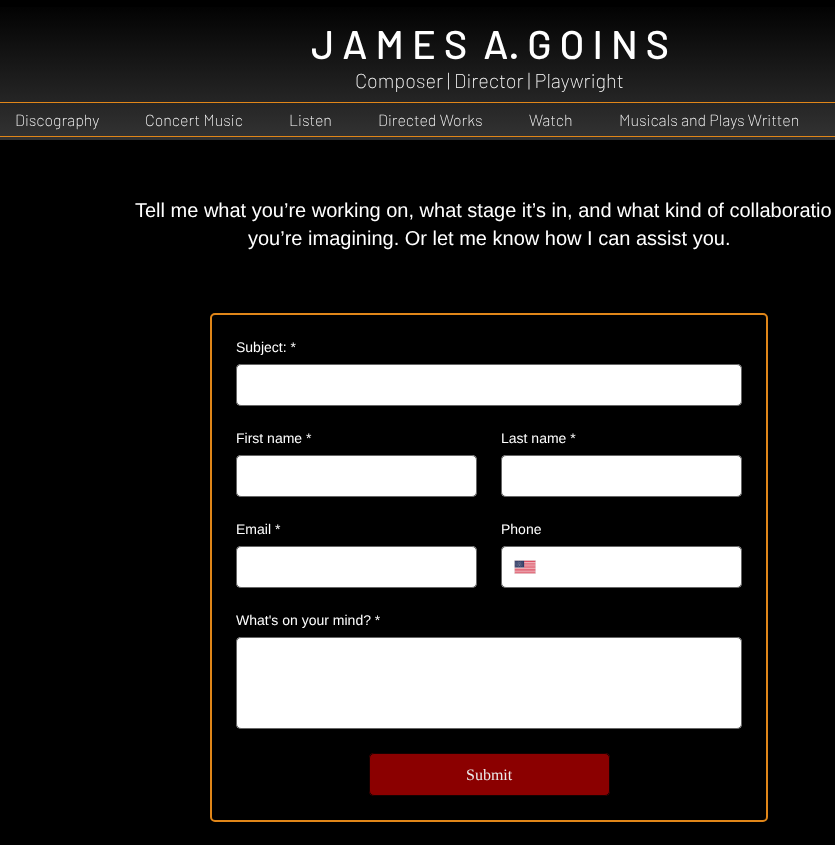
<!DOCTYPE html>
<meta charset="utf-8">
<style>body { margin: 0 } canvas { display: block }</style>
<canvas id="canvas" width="835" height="845"></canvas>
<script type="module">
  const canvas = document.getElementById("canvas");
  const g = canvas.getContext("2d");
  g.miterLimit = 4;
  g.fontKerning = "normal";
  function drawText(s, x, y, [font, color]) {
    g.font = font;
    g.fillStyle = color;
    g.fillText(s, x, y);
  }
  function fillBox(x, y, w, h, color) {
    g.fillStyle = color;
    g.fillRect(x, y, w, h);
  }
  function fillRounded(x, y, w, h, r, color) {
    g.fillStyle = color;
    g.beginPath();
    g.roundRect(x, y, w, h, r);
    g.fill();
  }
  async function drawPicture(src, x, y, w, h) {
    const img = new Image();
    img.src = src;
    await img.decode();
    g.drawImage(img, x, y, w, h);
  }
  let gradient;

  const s1 = ["500 40px Barlow", "#FFFFFF"];
  const s2 = ["200 20px Barlow", "#FFFFFF"];
  const s3 = ["200 16px Barlow", "#FFFFFF"];
  const s4 = ["20px Liberation Sans", "#FFFFFF"];
  const s5 = ["14px Liberation Sans", "#FFFFFF"];
  const s6 = ["16px Liberation Serif", "#ECECEC"];

  fillBox(0, 0, 835, 845, "#000000");
  gradient = g.createLinearGradient(490, 0, 490, 140);
  gradient.addColorStop(0, "#000000");
  gradient.addColorStop(1, "#333333");
  g.fillStyle = gradient;
  g.fillRect(0, 7, 835, 133);
  drawText("J A M E S  A. G O I N S", 311, 59, s1);
  drawText("Composer | Director | Playwright", 355, 88, s2);
  fillBox(0, 102, 835, 1, "#E08619");
  fillBox(0, 136, 835, 1, "#E08619");
  drawText("Discography", 15, 126, s3);
  drawText("Concert Music", 145, 126, s3);
  drawText("Listen", 289, 126, s3);
  drawText("Directed Works", 378, 126, s3);
  drawText("Watch", 529, 126, s3);
  drawText("Musicals and Plays Written", 619, 126, s3);
  drawText("Tell me what you’re working on, what stage it’s in, and what kind of collaboratio", 135, 217, s4);
  drawText("you’re imagining. Or let me know how I can assist you.", 248, 245, s4);
  g.beginPath();
  g.roundRect(211, 314, 556, 507, 4);
  g.strokeStyle = "#E08619";
  g.lineWidth = 2;
  g.stroke();
  drawText("Subject: *", 236, 352, s5);
  fillRounded(236, 364, 506, 42, 5, "#FFFFFF");
  g.beginPath();
  g.roundRect(236.5, 364.5, 505, 41, 4.5);
  g.strokeStyle = "rgba(0, 0, 0, 0.6)";
  g.lineWidth = 1;
  g.stroke();
  drawText("First name *", 236, 443, s5);
  drawText("Last name *", 501, 443, s5);
  fillRounded(236, 455, 241, 42, 5, "#FFFFFF");
  g.beginPath();
  g.roundRect(236.5, 455.5, 240, 41, 4.5);
  g.stroke();
  fillRounded(501, 455, 241, 42, 5, "#FFFFFF");
  g.beginPath();
  g.roundRect(501.5, 455.5, 240, 41, 4.5);
  g.stroke();
  drawText("Email *", 236, 534, s5);
  drawText("Phone", 501, 534, s5);
  fillRounded(236, 546, 241, 42, 5, "#FFFFFF");
  g.beginPath();
  g.roundRect(236.5, 546.5, 240, 41, 4.5);
  g.stroke();
  fillRounded(501, 546, 241, 42, 5, "#FFFFFF");
  g.beginPath();
  g.roundRect(501.5, 546.5, 240, 41, 4.5);
  g.stroke();
  await drawPicture("pic1.png", 514, 560, 22, 14);
  drawText("What's on your mind? *", 236, 625, s5);
  fillRounded(236, 637, 506, 92, 5, "#FFFFFF");
  g.beginPath();
  g.roundRect(236.5, 637.5, 505, 91, 4.5);
  g.stroke();
  fillRounded(369, 753, 241, 43, 5, "#8B0000");
  g.beginPath();
  g.roundRect(369.5, 753.5, 240, 42, 4.5);
  g.strokeStyle = "rgba(0, 0, 0, 0.83)";
  g.stroke();
  drawText("Submit", 466, 780, s6);
</script>
